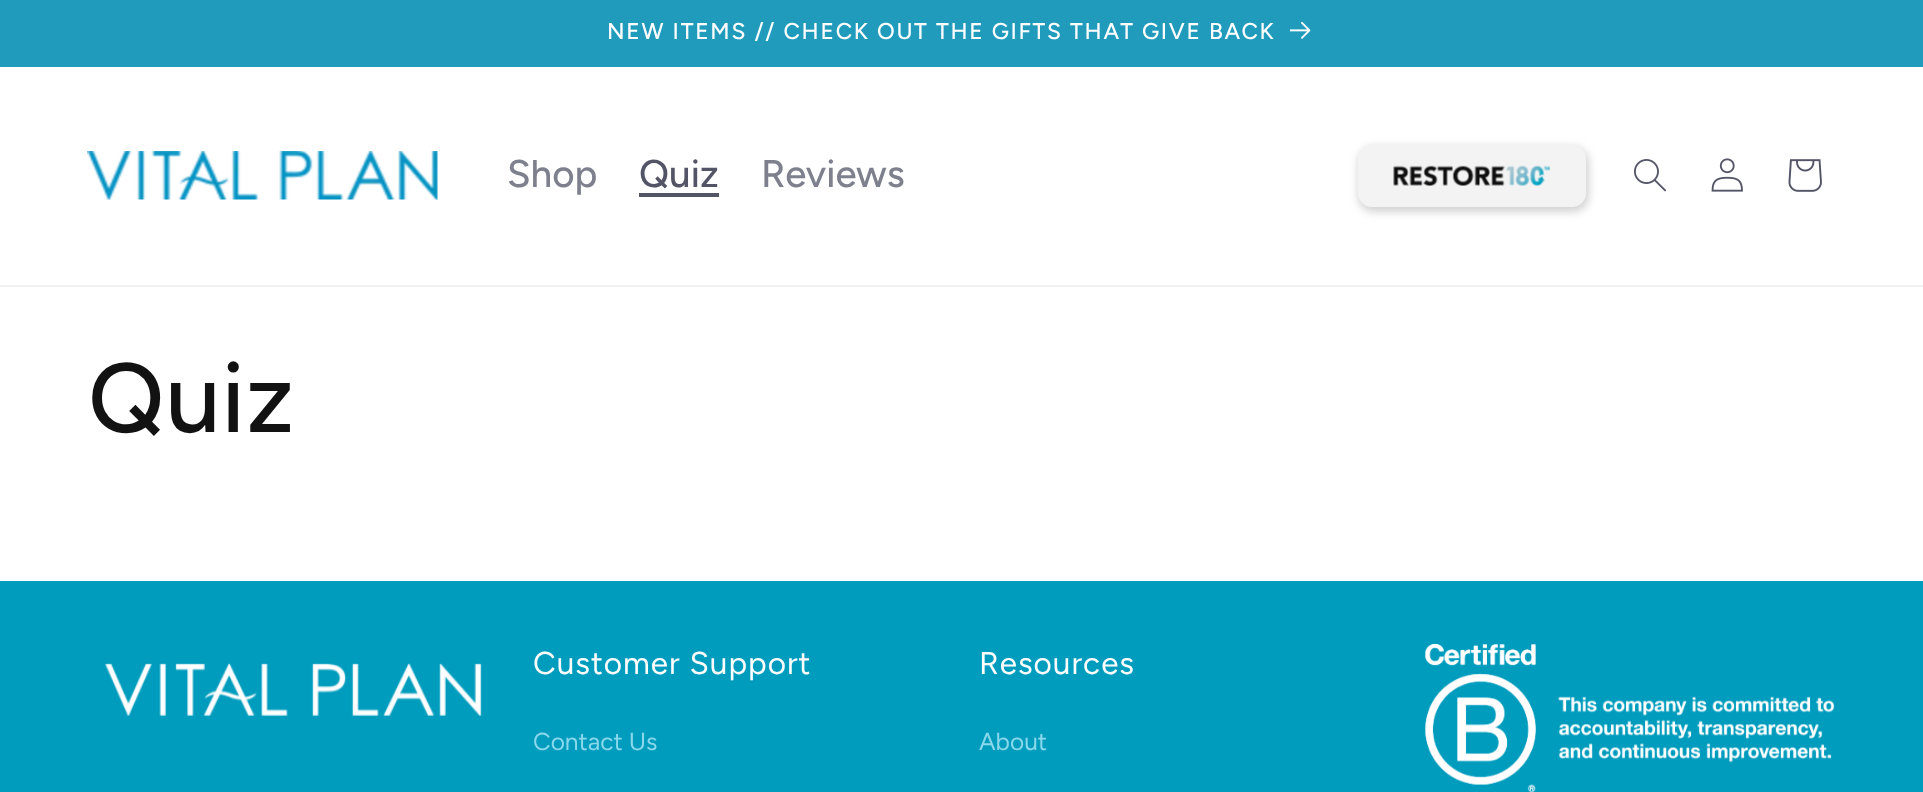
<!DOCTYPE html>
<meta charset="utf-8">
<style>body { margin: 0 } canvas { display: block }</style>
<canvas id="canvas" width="1923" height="792"></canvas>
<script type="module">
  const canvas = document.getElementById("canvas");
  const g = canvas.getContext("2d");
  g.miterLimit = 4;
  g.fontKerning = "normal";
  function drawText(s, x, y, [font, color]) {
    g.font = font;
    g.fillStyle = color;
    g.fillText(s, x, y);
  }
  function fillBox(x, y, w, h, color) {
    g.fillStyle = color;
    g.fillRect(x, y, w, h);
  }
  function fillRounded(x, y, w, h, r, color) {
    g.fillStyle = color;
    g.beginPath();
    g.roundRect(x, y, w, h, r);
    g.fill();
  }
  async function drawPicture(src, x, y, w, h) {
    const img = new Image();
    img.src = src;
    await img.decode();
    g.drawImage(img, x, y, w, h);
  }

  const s1 = ["500 22.75px Figtree", "#FFFFFF"];
  const s2 = ["500 38.5px Figtree", "#7E808D"];
  const s3 = ["500 38.5px Figtree", "#535567"];
  const s4 = ["500 98px Figtree", "#121212"];
  const s5 = ["31.5px Figtree", "#FFFFFF"];
  const s6 = ["24.5px Figtree", "#89D8EC"];

  fillBox(0, 0, 1923, 792, "#FFFFFF");
  fillBox(0, 0, 1923, 67, "#209BBC");
  g.letterSpacing = "1.75px";
  drawText("NEW ITEMS // CHECK OUT THE GIFTS THAT GIVE BACK", 607, 39, s1);
  await drawPicture("pic1.png", 1290, 22, 21, 17);
  fillBox(0, 285, 1923, 2, "#F1F1F3");
  await drawPicture("pic2.png", 87, 151, 351, 49);
  g.letterSpacing = "0px";
  drawText("Shop", 507, 187, s2);
  drawText("Quiz", 639, 187, s3);
  fillBox(639, 193, 80, 4, "#535567");
  drawText("Reviews", 761, 187, s2);
  g.fillStyle = "rgba(79, 76, 76, 0.25)";
  g.filter = "blur(4.5px)";
  g.beginPath();
  g.roundRect(1358, 147, 231, 65, 16);
  g.fill();
  g.filter = "none";
  fillRounded(1358, 145, 228, 62, 14, "#F3F3F3");
  await drawPicture("pic3.png", 1393, 165, 157, 21);
  await drawPicture("pic4.png", 1634, 159, 32, 33);
  await drawPicture("pic5.png", 1711, 158, 32, 34);
  await drawPicture("pic6.png", 1788, 159, 34, 33);
  g.letterSpacing = "1px";
  drawText("Quiz", 88, 432, s4);
  fillBox(0, 581, 1923, 211, "#009CBD");
  await drawPicture("pic7.png", 105, 663, 377, 53);
  drawText("Customer Support", 533, 674, s5);
  g.letterSpacing = "0px";
  drawText("Contact Us", 533, 750, s6);
  g.letterSpacing = "1px";
  drawText("Resources", 979, 674, s5);
  g.letterSpacing = "0px";
  drawText("About", 979, 750, s6);
  await drawPicture("pic8.png", 1425, 644, 410, 148);
</script>
